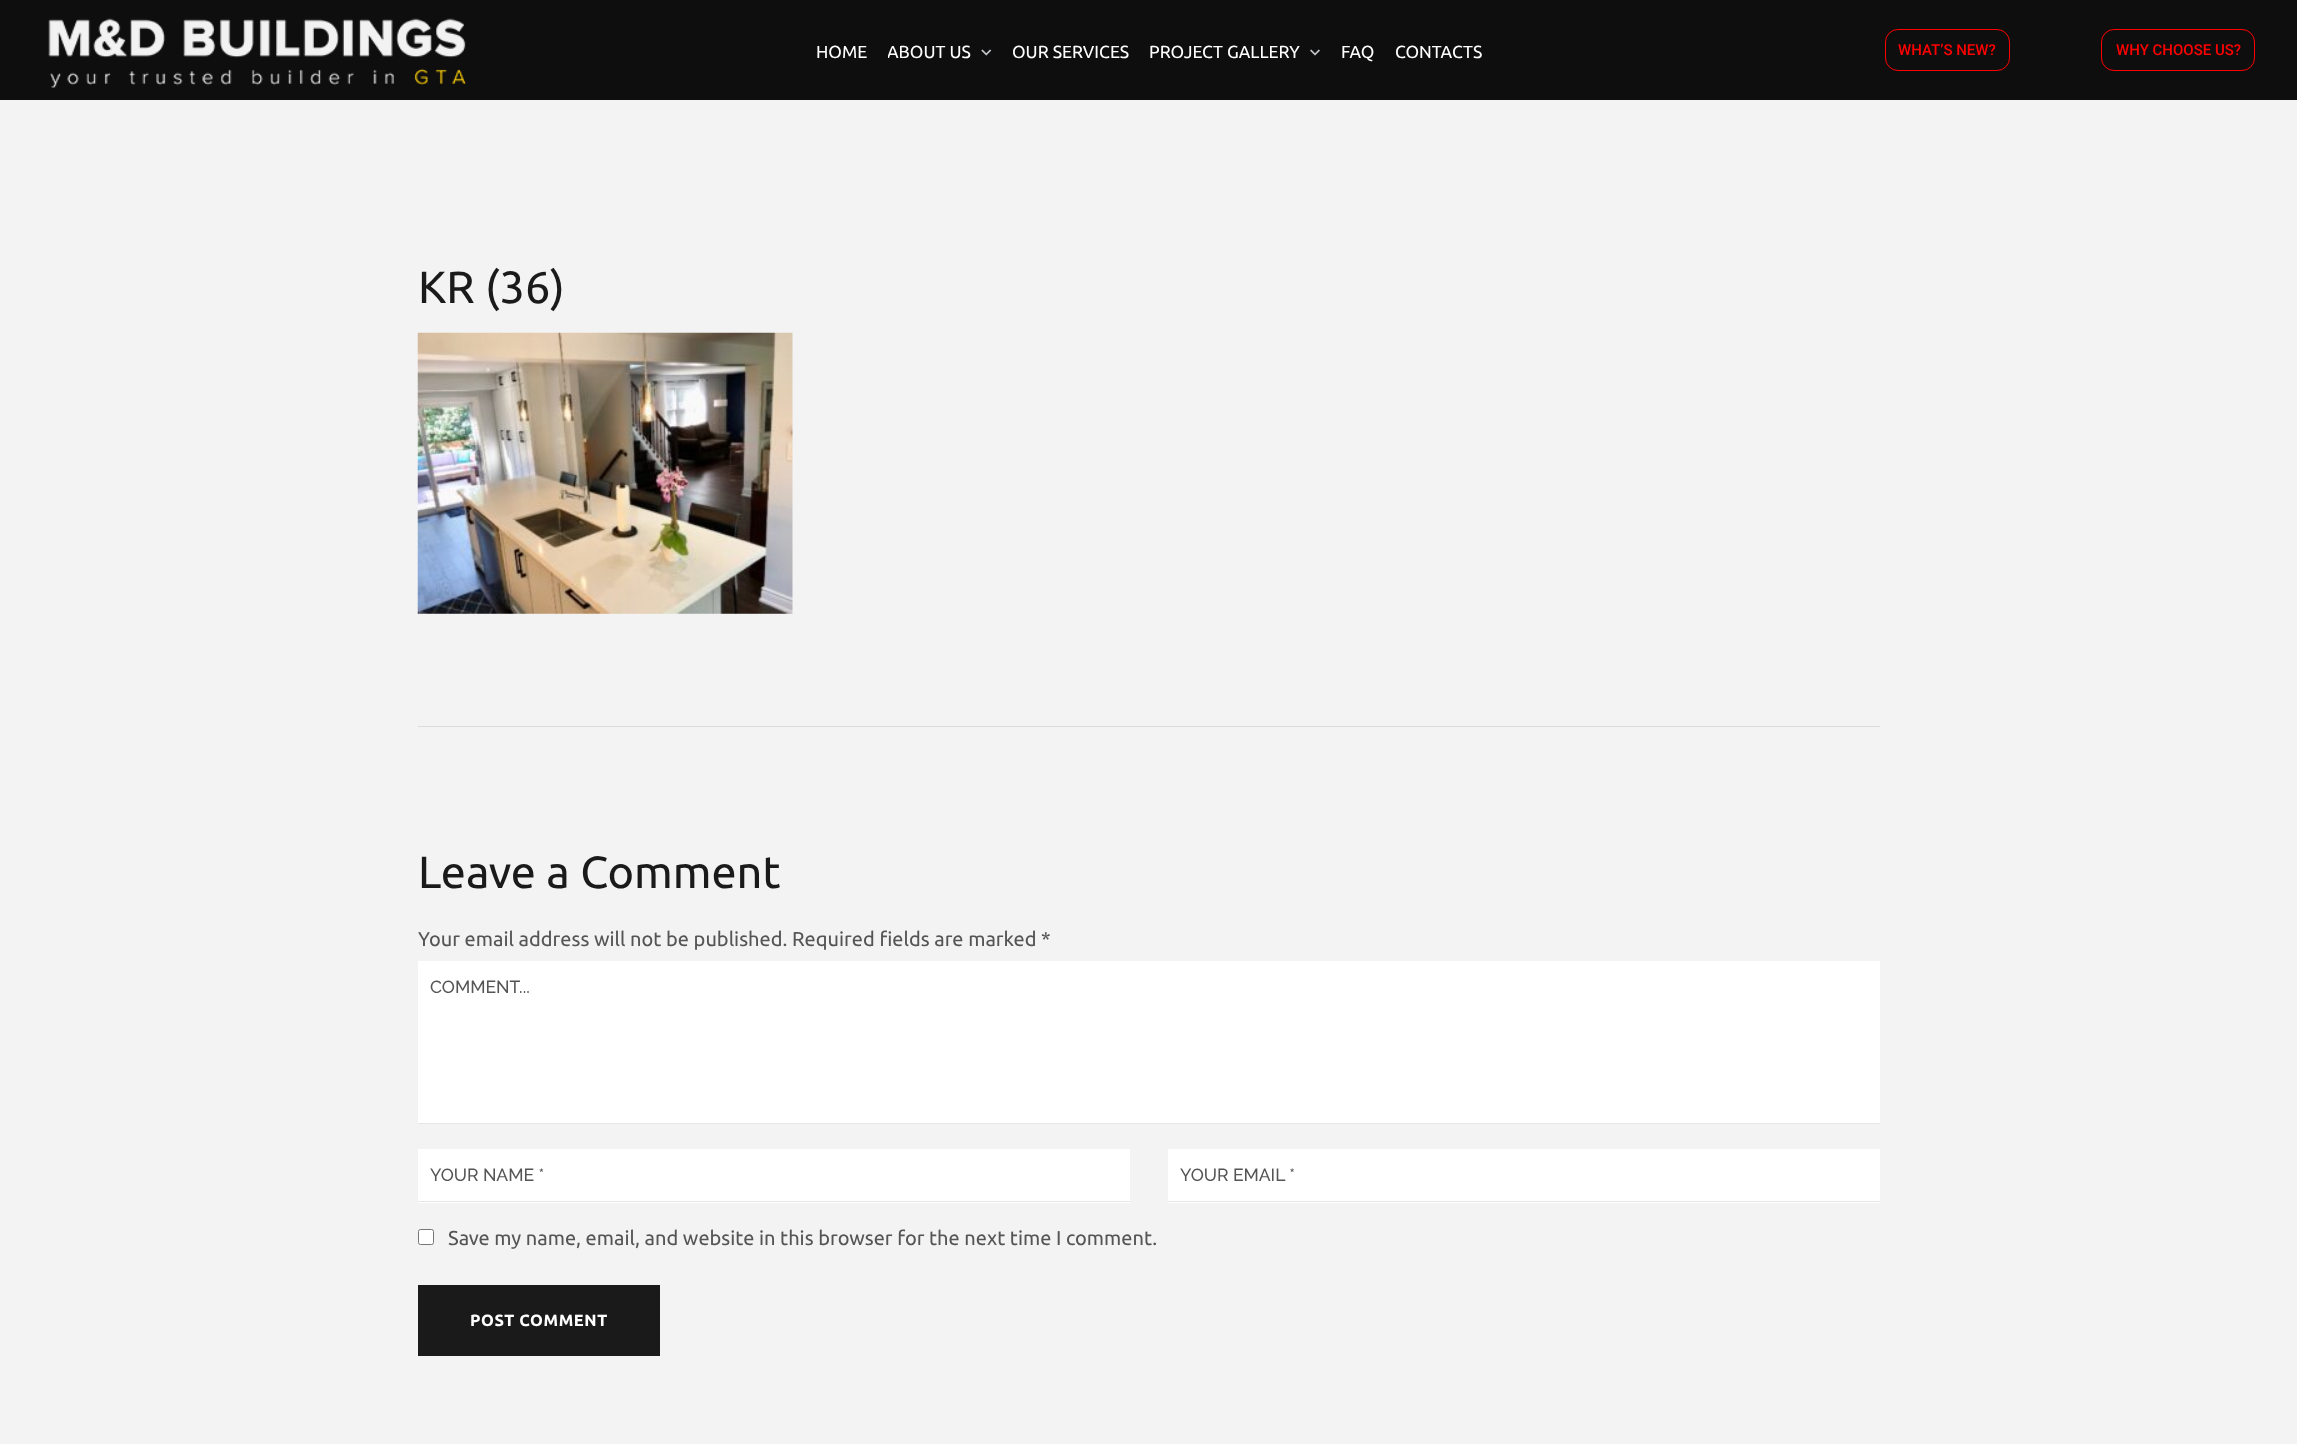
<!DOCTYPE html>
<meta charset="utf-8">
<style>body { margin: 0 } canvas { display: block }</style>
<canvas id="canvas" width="2297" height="1444"></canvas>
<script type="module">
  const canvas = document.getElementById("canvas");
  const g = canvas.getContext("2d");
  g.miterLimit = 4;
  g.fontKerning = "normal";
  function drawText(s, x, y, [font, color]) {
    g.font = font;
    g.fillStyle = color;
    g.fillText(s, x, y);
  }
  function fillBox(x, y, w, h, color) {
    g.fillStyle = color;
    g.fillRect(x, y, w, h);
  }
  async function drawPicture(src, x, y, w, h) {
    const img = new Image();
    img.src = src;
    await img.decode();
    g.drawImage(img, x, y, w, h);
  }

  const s1 = ["17.5px Ubuntu", "#FFFFFF"];
  const s2 = ["500 15px Roboto", "#FF0000"];
  const s3 = ["45px Ubuntu", "#1A1A1A"];
  const s4 = ["20px Ubuntu", "#555555"];
  const s5 = ["500 17.5px Raleway", "#555555"];
  const s6 = ["bold 16.25px Ubuntu", "#FFFFFF"];

  fillBox(0, 0, 2297, 1444, "#F3F3F3");
  fillBox(0, 0, 2297, 100, "#0F0E0E");
  await drawPicture("pic1.png", 48, 18, 418, 70);
  drawText("HOME", 816, 58, s1);
  g.save();
  g.beginPath();
  g.rect(888, 34, 105, 37);
  g.clip();
  drawText("ABOUT US", 887, 58, s1);
  g.restore();
  await drawPicture("pic2.png", 981, 49, 11, 7);
  drawText("OUR SERVICES", 1012, 58, s1);
  drawText("PROJECT GALLERY", 1149, 58, s1);
  await drawPicture("pic3.png", 1310, 49, 10, 7);
  drawText("FAQ", 1341, 58, s1);
  drawText("CONTACTS", 1395, 58, s1);
  g.beginPath();
  g.roundRect(1885.5, 29.5, 124, 41, 12.5);
  g.strokeStyle = "#FF0000";
  g.stroke();
  drawText("WHAT’S NEW?", 1898, 55, s2);
  g.beginPath();
  g.roundRect(2101.5, 29.5, 153, 41, 12.5);
  g.stroke();
  drawText("WHY CHOOSE US?", 2116, 55, s2);
  drawText("KR (36)", 418, 303, s3);
  await drawPicture("pic4.png", 417, 332, 376, 282);
  fillBox(418, 726, 1462, 1, "#DBDBDB");
  drawText("Leave a Comment", 418, 888, s3);
  drawText("Your email address will not be published. Required fields are marked *", 418, 946, s4);
  fillBox(418, 961, 1462, 162, "#FFFFFF");
  fillBox(418, 1123, 1462, 1, "#E6E6E6");
  drawText("COMMENT...", 430, 993, s5);
  fillBox(418, 1149, 712, 54, "#FFFFFF");
  fillBox(418, 1201, 712, 1, "#E6E6E6");
  drawText("YOUR NAME *", 430, 1181, s5);
  fillBox(1168, 1149, 712, 54, "#FFFFFF");
  fillBox(1168, 1201, 712, 1, "#E6E6E6");
  drawText("YOUR EMAIL *", 1180, 1181, s5);
  g.fillStyle = "#FFFFFF";
  g.beginPath();
  g.roundRect(418.5, 1229.5, 15, 15, 2);
  g.fill();
  g.strokeStyle = "#767676";
  g.stroke();
  drawText("Save my name, email, and website in this browser for the next time I comment.", 448, 1245, s4);
  fillBox(418, 1285, 242, 71, "#1A1A1A");
  g.letterSpacing = "0.6px";
  drawText("POST COMMENT", 470, 1326, s6);
</script>
